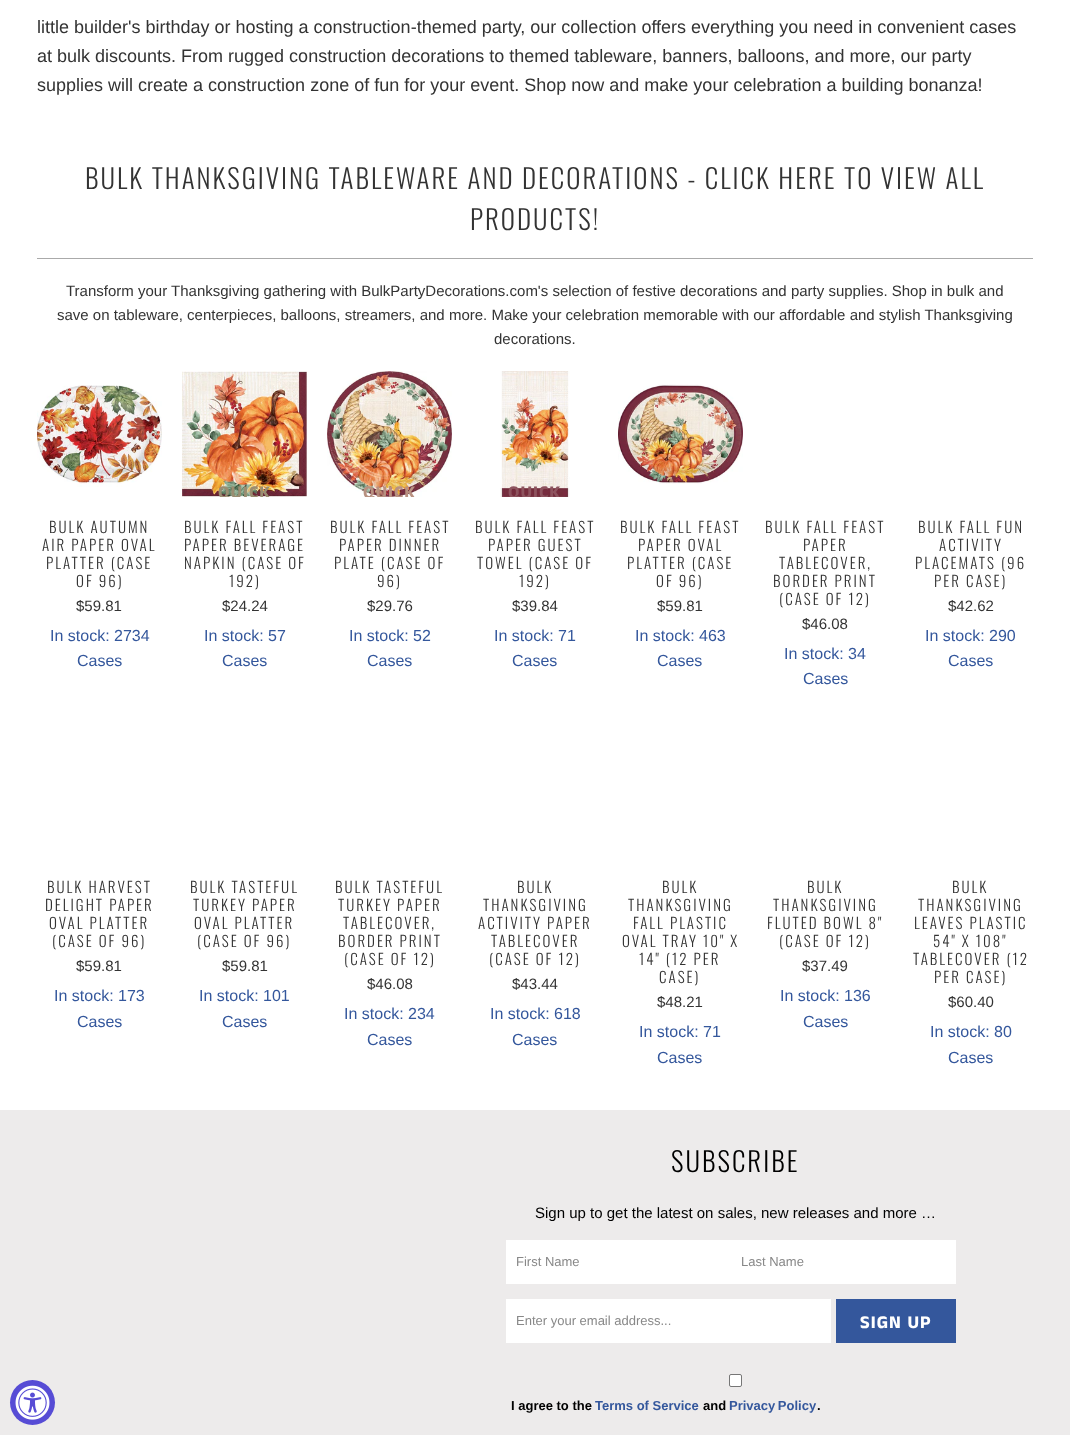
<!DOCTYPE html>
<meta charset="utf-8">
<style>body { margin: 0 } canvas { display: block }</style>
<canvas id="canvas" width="1070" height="1435"></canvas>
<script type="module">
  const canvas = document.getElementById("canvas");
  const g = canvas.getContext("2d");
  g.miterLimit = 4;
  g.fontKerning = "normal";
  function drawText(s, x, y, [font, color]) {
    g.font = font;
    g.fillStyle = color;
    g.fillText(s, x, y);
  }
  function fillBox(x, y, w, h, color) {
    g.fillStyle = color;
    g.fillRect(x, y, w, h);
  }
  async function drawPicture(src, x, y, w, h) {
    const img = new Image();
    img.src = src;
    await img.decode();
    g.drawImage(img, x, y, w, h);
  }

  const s1 = ["18px Liberation Sans", "#333333"];
  const s2 = ["300 27px Oswald", "#333333"];
  const s3 = ["15px Liberation Sans", "#333333"];
  const s4 = ["300 15px Oswald", "#333333"];
  const s5 = ["16px Liberation Sans", "#34579C"];
  const s6 = ["bold 18px Anek Tamil", "#9A8D71"];
  const s7 = ["bold 18px Anek Tamil", "#B89181"];
  const s8 = ["bold 18px Anek Tamil", "#8D535E"];
  const s9 = ["300 27px Oswald", "#000000"];
  const s10 = ["15px Liberation Sans", "#000000"];
  const s11 = ["13px Liberation Sans", "#888888"];
  const s12 = ["bold 18px Anek Tamil", "#FFFFFF"];
  const s13 = ["bold 13px Liberation Sans", "#000000"];
  const s14 = ["bold 13px Liberation Sans", "#34579C"];

  fillBox(0, 0, 1070, 1435, "#FFFFFF");
  fillBox(0, 1110, 1070, 325, "#EDEBEB");
  g.fillStyle = "#574CD5";
  g.beginPath();
  g.arc(32.5, 1402.5, 22.5, 0, Math.PI * 2);
  g.fill();
  await drawPicture("pic1.png", 15, 1385, 35, 35);
  drawText("little builder's birthday or hosting a construction-themed party, our collection offers everything you need in convenient cases", 37, 33, s1);
  drawText("at bulk discounts. From rugged construction decorations to themed tableware, banners, balloons, and more, our party", 37, 62, s1);
  drawText("supplies will create a construction zone of fun for your event. Shop now and make your celebration a building bonanza!", 37, 91, s1);
  g.letterSpacing = "2px";
  drawText("BULK THANKSGIVING TABLEWARE AND DECORATIONS - CLICK HERE TO VIEW ALL", 85, 189, s2);
  drawText("PRODUCTS!", 470, 230, s2);
  fillBox(37, 258, 996, 1, "#AAAAAA");
  g.letterSpacing = "0px";
  drawText("Transform your Thanksgiving gathering with BulkPartyDecorations.com's selection of festive decorations and party supplies. Shop in bulk and", 66, 296, s3);
  drawText("save on tableware, centerpieces, balloons, streamers, and more. Make your celebration memorable with our affordable and stylish Thanksgiving", 57, 320, s3);
  drawText("decorations.", 494, 344, s3);
  await drawPicture("pic2.png", 37, 385, 125, 102);
  g.letterSpacing = "2px";
  drawText("BULK AUTUMN", 49, 533, s4);
  drawText("AIR PAPER OVAL", 42, 551, s4);
  drawText("PLATTER (CASE", 46, 569, s4);
  drawText("OF 96)", 76, 587, s4);
  g.letterSpacing = "0px";
  drawText("$59.81", 76, 611, s3);
  drawText("In stock: 2734", 50, 641, s5);
  drawText("Cases", 77, 666, s5);
  await drawPicture("pic3.png", 182, 371, 125, 126);
  g.save();
  g.beginPath();
  g.rect(182, 371, 125, 126);
  g.clip();
  g.letterSpacing = "1px";
  drawText("QUICK", 218, 498, s6);
  g.restore();
  g.letterSpacing = "2px";
  drawText("BULK FALL FEAST", 184, 533, s4);
  drawText("PAPER BEVERAGE", 184, 551, s4);
  drawText("NAPKIN (CASE OF", 184, 569, s4);
  drawText("192)", 229, 587, s4);
  g.letterSpacing = "0px";
  drawText("$24.24", 222, 611, s3);
  drawText("In stock: 57", 204, 641, s5);
  drawText("Cases", 222, 666, s5);
  await drawPicture("pic4.png", 327, 371, 125, 126);
  g.save();
  g.beginPath();
  g.rect(327, 371, 125, 126);
  g.clip();
  g.letterSpacing = "1px";
  drawText("QUICK", 363, 498, s7);
  g.restore();
  g.letterSpacing = "2px";
  drawText("BULK FALL FEAST", 330, 533, s4);
  drawText("PAPER DINNER", 339, 551, s4);
  drawText("PLATE (CASE OF", 334, 569, s4);
  drawText("96)", 377, 587, s4);
  g.letterSpacing = "0px";
  drawText("$29.76", 367, 611, s3);
  drawText("In stock: 52", 349, 641, s5);
  drawText("Cases", 367, 666, s5);
  await drawPicture("pic5.png", 500, 371, 70, 126);
  g.save();
  g.beginPath();
  g.rect(472, 371, 126, 126);
  g.clip();
  g.letterSpacing = "1px";
  drawText("QUICK", 508, 498, s8);
  g.restore();
  g.letterSpacing = "2px";
  drawText("BULK FALL FEAST", 475, 533, s4);
  drawText("PAPER GUEST", 488, 551, s4);
  drawText("TOWEL (CASE OF", 477, 569, s4);
  drawText("192)", 519, 587, s4);
  g.letterSpacing = "0px";
  drawText("$39.84", 512, 611, s3);
  drawText("In stock: 71", 494, 641, s5);
  drawText("Cases", 512, 666, s5);
  await drawPicture("pic6.png", 618, 384, 125, 100);
  g.letterSpacing = "2px";
  drawText("BULK FALL FEAST", 620, 533, s4);
  drawText("PAPER OVAL", 638, 551, s4);
  drawText("PLATTER (CASE", 627, 569, s4);
  drawText("OF 96)", 656, 587, s4);
  g.letterSpacing = "0px";
  drawText("$59.81", 657, 611, s3);
  drawText("In stock: 463", 635, 641, s5);
  drawText("Cases", 657, 666, s5);
  g.letterSpacing = "2px";
  drawText("BULK FALL FEAST", 765, 533, s4);
  drawText("PAPER", 803, 551, s4);
  drawText("TABLECOVER,", 779, 569, s4);
  drawText("BORDER PRINT", 773, 587, s4);
  drawText("(CASE OF 12)", 779, 605, s4);
  g.letterSpacing = "0px";
  drawText("$46.08", 802, 629, s3);
  drawText("In stock: 34", 784, 659, s5);
  drawText("Cases", 803, 684, s5);
  g.letterSpacing = "2px";
  drawText("BULK FALL FUN", 918, 533, s4);
  drawText("ACTIVITY", 939, 551, s4);
  drawText("PLACEMATS (96", 915, 569, s4);
  drawText("PER CASE)", 934, 587, s4);
  g.letterSpacing = "0px";
  drawText("$42.62", 948, 611, s3);
  drawText("In stock: 290", 925, 641, s5);
  drawText("Cases", 948, 666, s5);
  g.letterSpacing = "2px";
  drawText("BULK HARVEST", 47, 893, s4);
  drawText("DELIGHT PAPER", 45, 911, s4);
  drawText("OVAL PLATTER", 49, 929, s4);
  drawText("(CASE OF 96)", 52, 947, s4);
  g.letterSpacing = "0px";
  drawText("$59.81", 76, 971, s3);
  drawText("In stock: 173", 54, 1001, s5);
  drawText("Cases", 77, 1027, s5);
  g.letterSpacing = "2px";
  drawText("BULK TASTEFUL", 190, 893, s4);
  drawText("TURKEY PAPER", 193, 911, s4);
  drawText("OVAL PLATTER", 194, 929, s4);
  drawText("(CASE OF 96)", 197, 947, s4);
  g.letterSpacing = "0px";
  drawText("$59.81", 222, 971, s3);
  drawText("In stock: 101", 199, 1001, s5);
  drawText("Cases", 222, 1027, s5);
  g.letterSpacing = "2px";
  drawText("BULK TASTEFUL", 335, 893, s4);
  drawText("TURKEY PAPER", 338, 911, s4);
  drawText("TABLECOVER,", 343, 929, s4);
  drawText("BORDER PRINT", 338, 947, s4);
  drawText("(CASE OF 12)", 344, 965, s4);
  g.letterSpacing = "0px";
  drawText("$46.08", 367, 989, s3);
  drawText("In stock: 234", 344, 1019, s5);
  drawText("Cases", 367, 1045, s5);
  g.letterSpacing = "2px";
  drawText("BULK", 517, 893, s4);
  drawText("THANKSGIVING", 483, 911, s4);
  drawText("ACTIVITY PAPER", 478, 929, s4);
  drawText("TABLECOVER", 491, 947, s4);
  drawText("(CASE OF 12)", 489, 965, s4);
  g.letterSpacing = "0px";
  drawText("$43.44", 512, 989, s3);
  drawText("In stock: 618", 490, 1019, s5);
  drawText("Cases", 512, 1045, s5);
  g.letterSpacing = "2px";
  drawText("BULK", 662, 893, s4);
  drawText("THANKSGIVING", 628, 911, s4);
  drawText("FALL PLASTIC", 633, 929, s4);
  drawText("OVAL TRAY 10\" X", 622, 947, s4);
  drawText("14\" (12 PER", 639, 965, s4);
  drawText("CASE)", 659, 983, s4);
  g.letterSpacing = "0px";
  drawText("$48.21", 657, 1007, s3);
  drawText("In stock: 71", 639, 1037, s5);
  drawText("Cases", 657, 1063, s5);
  g.letterSpacing = "2px";
  drawText("BULK", 807, 893, s4);
  drawText("THANKSGIVING", 773, 911, s4);
  drawText("FLUTED BOWL 8\"", 767, 929, s4);
  drawText("(CASE OF 12)", 779, 947, s4);
  g.letterSpacing = "0px";
  drawText("$37.49", 802, 971, s3);
  drawText("In stock: 136", 780, 1001, s5);
  drawText("Cases", 803, 1027, s5);
  g.letterSpacing = "2px";
  drawText("BULK", 952, 893, s4);
  drawText("THANKSGIVING", 918, 911, s4);
  drawText("LEAVES PLASTIC", 914, 929, s4);
  drawText("54\" X 108\"", 933, 947, s4);
  drawText("TABLECOVER (12", 913, 965, s4);
  drawText("PER CASE)", 934, 983, s4);
  g.letterSpacing = "0px";
  drawText("$60.40", 948, 1007, s3);
  drawText("In stock: 80", 930, 1037, s5);
  drawText("Cases", 948, 1063, s5);
  g.letterSpacing = "2px";
  drawText("SUBSCRIBE", 671, 1172, s9);
  g.letterSpacing = "0px";
  drawText("Sign up to get the latest on sales, new releases and more …", 535, 1218, s10);
  fillBox(506, 1240, 450, 44, "#FFFFFF");
  drawText("First Name", 516, 1266, s11);
  drawText("Last Name", 741, 1266, s11);
  fillBox(506, 1299, 325, 44, "#FFFFFF");
  drawText("Enter your email address...", 516, 1325, s11);
  fillBox(836, 1299, 120, 44, "#34579C");
  g.letterSpacing = "1px";
  drawText("SIGN UP", 860, 1328, s12);
  g.beginPath();
  g.roundRect(729.5, 1374.5, 12, 12, 1.5);
  g.fill();
  g.strokeStyle = "#767676";
  g.stroke();
  g.letterSpacing = "0px";
  drawText("I agree to the", 511, 1410, s13);
  drawText("Terms of Service", 595, 1410, s14);
  drawText("and", 703, 1410, s13);
  g.wordSpacing = "-1px";
  drawText("Privacy Policy", 729, 1410, s14);
  g.wordSpacing = "0px";
  drawText(".", 817, 1410, s13);
</script>
